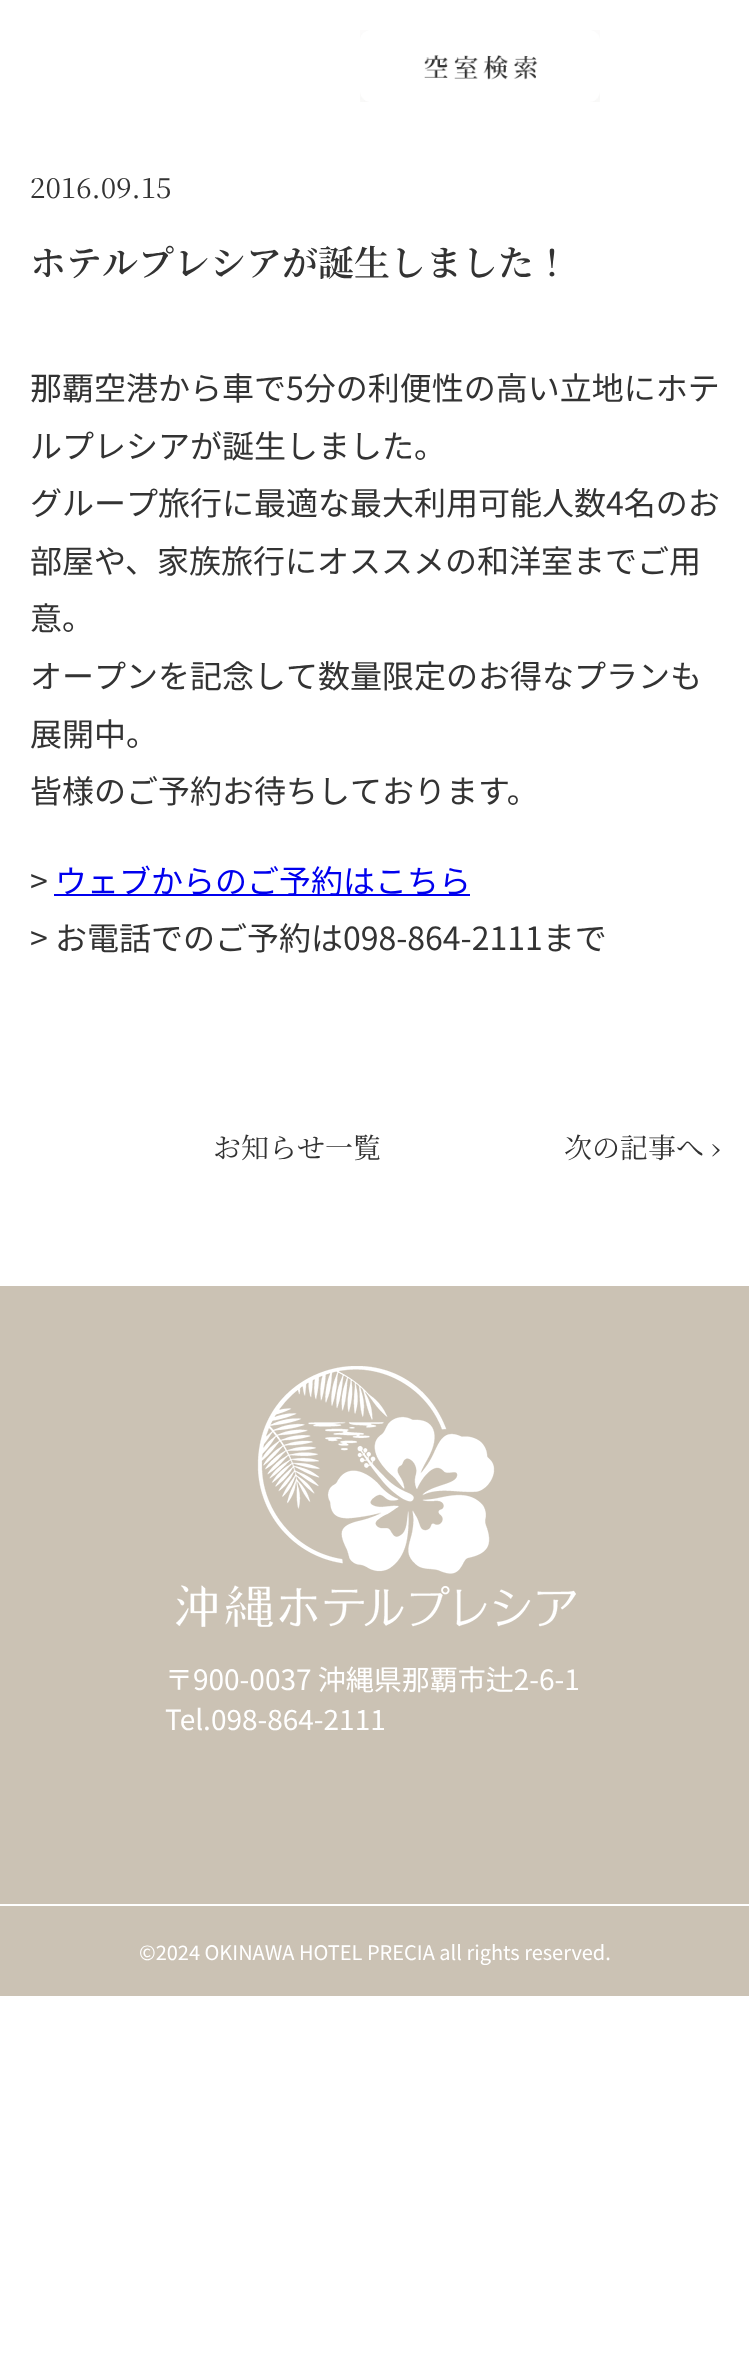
<!DOCTYPE html>
<meta charset="utf-8">
<style>body { margin: 0 } canvas { display: block }</style>
<canvas id="canvas" width="749" height="2357"></canvas>
<script type="module">
  const canvas = document.getElementById("canvas");
  const g = canvas.getContext("2d");
  g.miterLimit = 4;
  g.fontKerning = "normal";
  function drawText(s, x, y, [font, color]) {
    g.font = font;
    g.fillStyle = color;
    g.fillText(s, x, y);
  }
  function fillBox(x, y, w, h, color) {
    g.fillStyle = color;
    g.fillRect(x, y, w, h);
  }
  async function drawPicture(src, x, y, w, h) {
    const img = new Image();
    img.src = src;
    await img.decode();
    g.drawImage(img, x, y, w, h);
  }

  const s1 = ["28px Noto Serif JP", "#333333"];
  const s2 = ["600 36px Noto Serif JP", "#333333"];
  const s3 = ["32px Noto Sans JP", "#333333"];
  const s4 = ["32px Noto Sans JP", "#0000EE"];
  const s5 = ["28px Noto Sans JP", "#FFFFFF"];
  const s6 = ["20px Noto Sans JP", "#FFFFFF"];

  fillBox(0, 0, 749, 2357, "#FFFFFF");
  await drawPicture("pic1.png", 360, 30, 240, 72);
  drawText("2016.09.15", 30, 198, s1);
  drawText("ホテルプレシアが誕生しました！", 30, 276, s2);
  drawText("那覇空港から車で5分の利便性の高い立地にホテ", 30, 400, s3);
  drawText("ルプレシアが誕生しました。", 30, 458, s3);
  drawText("グループ旅行に最適な最大利用可能人数4名のお", 30, 515, s3);
  drawText("部屋や、家族旅行にオススメの和洋室までご用", 30, 573, s3);
  drawText("意。", 30, 630, s3);
  drawText("オープンを記念して数量限定のお得なプランも", 30, 688, s3);
  drawText("展開中。", 30, 746, s3);
  drawText("皆様のご予約お待ちしております。", 30, 803, s3);
  drawText(">", 30, 893, s3);
  fillBox(54, 894, 416, 2, "#0000EE");
  drawText("ウェブからのご予約はこちら", 55, 893, s4);
  drawText("> お電話でのご予約は098-864-2111まで", 30, 950, s3);
  drawText("お知らせ一覧", 213, 1158, s1);
  drawText("次の記事へ ›", 564, 1158, s1);
  fillBox(0, 1286, 749, 710, "#CBC2B4");
  await drawPicture("pic2.png", 176, 1366, 400, 261);
  drawText("〒900-0037 沖縄県那覇市辻2-6-1", 165, 1690, s5);
  drawText("Tel.098-864-2111", 165, 1730, s5);
  fillBox(0, 1904, 749, 2, "#FFFFFF");
  drawText("©2024 OKINAWA HOTEL PRECIA all rights reserved.", 139, 1960, s6);
</script>
